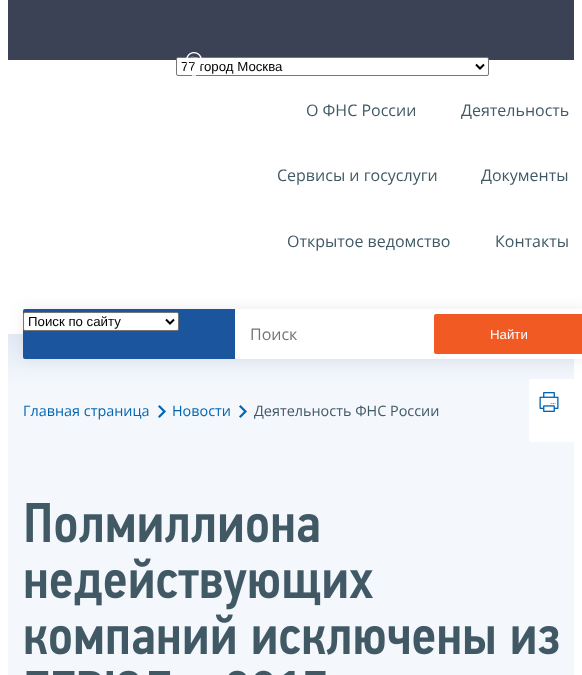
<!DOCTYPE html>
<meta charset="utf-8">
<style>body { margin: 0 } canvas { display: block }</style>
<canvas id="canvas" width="582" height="675"></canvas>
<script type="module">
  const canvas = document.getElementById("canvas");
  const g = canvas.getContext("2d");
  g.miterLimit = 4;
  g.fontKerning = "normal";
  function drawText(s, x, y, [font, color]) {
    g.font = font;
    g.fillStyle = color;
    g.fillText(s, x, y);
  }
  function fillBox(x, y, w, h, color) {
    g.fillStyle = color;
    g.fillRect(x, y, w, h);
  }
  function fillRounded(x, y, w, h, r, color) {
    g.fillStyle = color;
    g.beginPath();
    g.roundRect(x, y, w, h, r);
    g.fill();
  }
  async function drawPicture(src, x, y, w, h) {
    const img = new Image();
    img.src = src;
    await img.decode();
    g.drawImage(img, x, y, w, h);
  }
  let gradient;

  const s1 = ["13.25px Liberation Sans", "#000000"];
  const s2 = ["16px Open Sans", "#405965"];
  const s3 = ["16px Open Sans", "#757575"];
  const s4 = ["13.25px Liberation Sans", "#FFFFFF"];
  const s5 = ["14.4px Open Sans", "#0066B3"];
  const s6 = ["14.4px Open Sans", "#405965"];

  fillBox(0, 0, 582, 675, "#FFFFFF");
  fillBox(8, 0, 566, 60, "#3B4256");
  g.fillStyle = "#FFFFFF";
  g.beginPath();
  g.roundRect(176.5, 57.5, 312, 18, 1.5);
  g.fill();
  g.strokeStyle = "#767676";
  g.stroke();
  drawText("77 город Москва", 181, 71, s1);
  await drawPicture("pic1.png", 186, 52, 16, 24);
  g.beginPath();
  g.moveTo(476, 64.5);
  g.lineTo(480, 68.5);
  g.lineTo(484, 64.5);
  g.strokeStyle = "#000000";
  g.lineWidth = 2;
  g.stroke();
  drawText("О ФНС России", 306, 116, s2);
  drawText("Деятельность", 461, 116, s2);
  drawText("Сервисы и госуслуги", 277, 181, s2);
  drawText("Документы", 481, 181, s2);
  drawText("Открытое ведомство", 287, 247, s2);
  drawText("Контакты", 495, 247, s2);
  gradient = g.createLinearGradient(291, 334, 291, 384);
  gradient.addColorStop(0, "#E2EAF6");
  gradient.addColorStop(1, "#F4F7FC");
  g.fillStyle = gradient;
  g.fillRect(8, 334, 566, 50);
  fillBox(8, 384, 566, 291, "#F4F7FC");
  fillRounded(529, 379, 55, 63, 2, "#FFFFFF");
  g.fillStyle = "rgba(0, 0, 0, 0.07)";
  g.filter = "blur(7.5px)";
  g.beginPath();
  g.roundRect(23, 309, 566, 50, 2);
  g.fill();
  g.filter = "none";
  g.fillStyle = "#1B559E";
  g.beginPath();
  g.roundRect(23, 309, 212, 50, [2, 0, 0, 2]);
  g.fill();
  g.fillStyle = "#FFFFFF";
  g.beginPath();
  g.roundRect(23.5, 312.5, 155, 18, 1.5);
  g.fill();
  g.strokeStyle = "#767676";
  g.lineWidth = 1;
  g.stroke();
  g.beginPath();
  g.moveTo(166, 319.5);
  g.lineTo(170, 323.5);
  g.lineTo(174, 319.5);
  g.strokeStyle = "#000000";
  g.lineWidth = 2;
  g.stroke();
  drawText("Поиск по сайту", 28, 326, s1);
  fillRounded(235, 309, 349, 50, 2, "#FFFFFF");
  drawText("Поиск", 250, 340, s3);
  fillRounded(434, 314, 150, 40, 2, "#F15A22");
  drawText("Найти", 490, 339, s4);
  drawText("Главная страница", 23, 416, s5);
  await drawPicture("pic2.png", 158, 405, 8, 13);
  drawText("Новости", 172, 416, s5);
  await drawPicture("pic2.png", 239, 405, 8, 13);
  drawText("Деятельность ФНС России", 254, 416, s6);
  await drawPicture("pic3.png", 539, 392, 20, 20);
  await drawPicture("pic4.png", 26, 503, 293, 40);
  await drawPicture("pic5.png", 25, 558, 348, 52);
  await drawPicture("pic6.png", 25, 614, 534, 41);
  await drawPicture("pic7.png", 26, 670, 300, 5);
</script>
